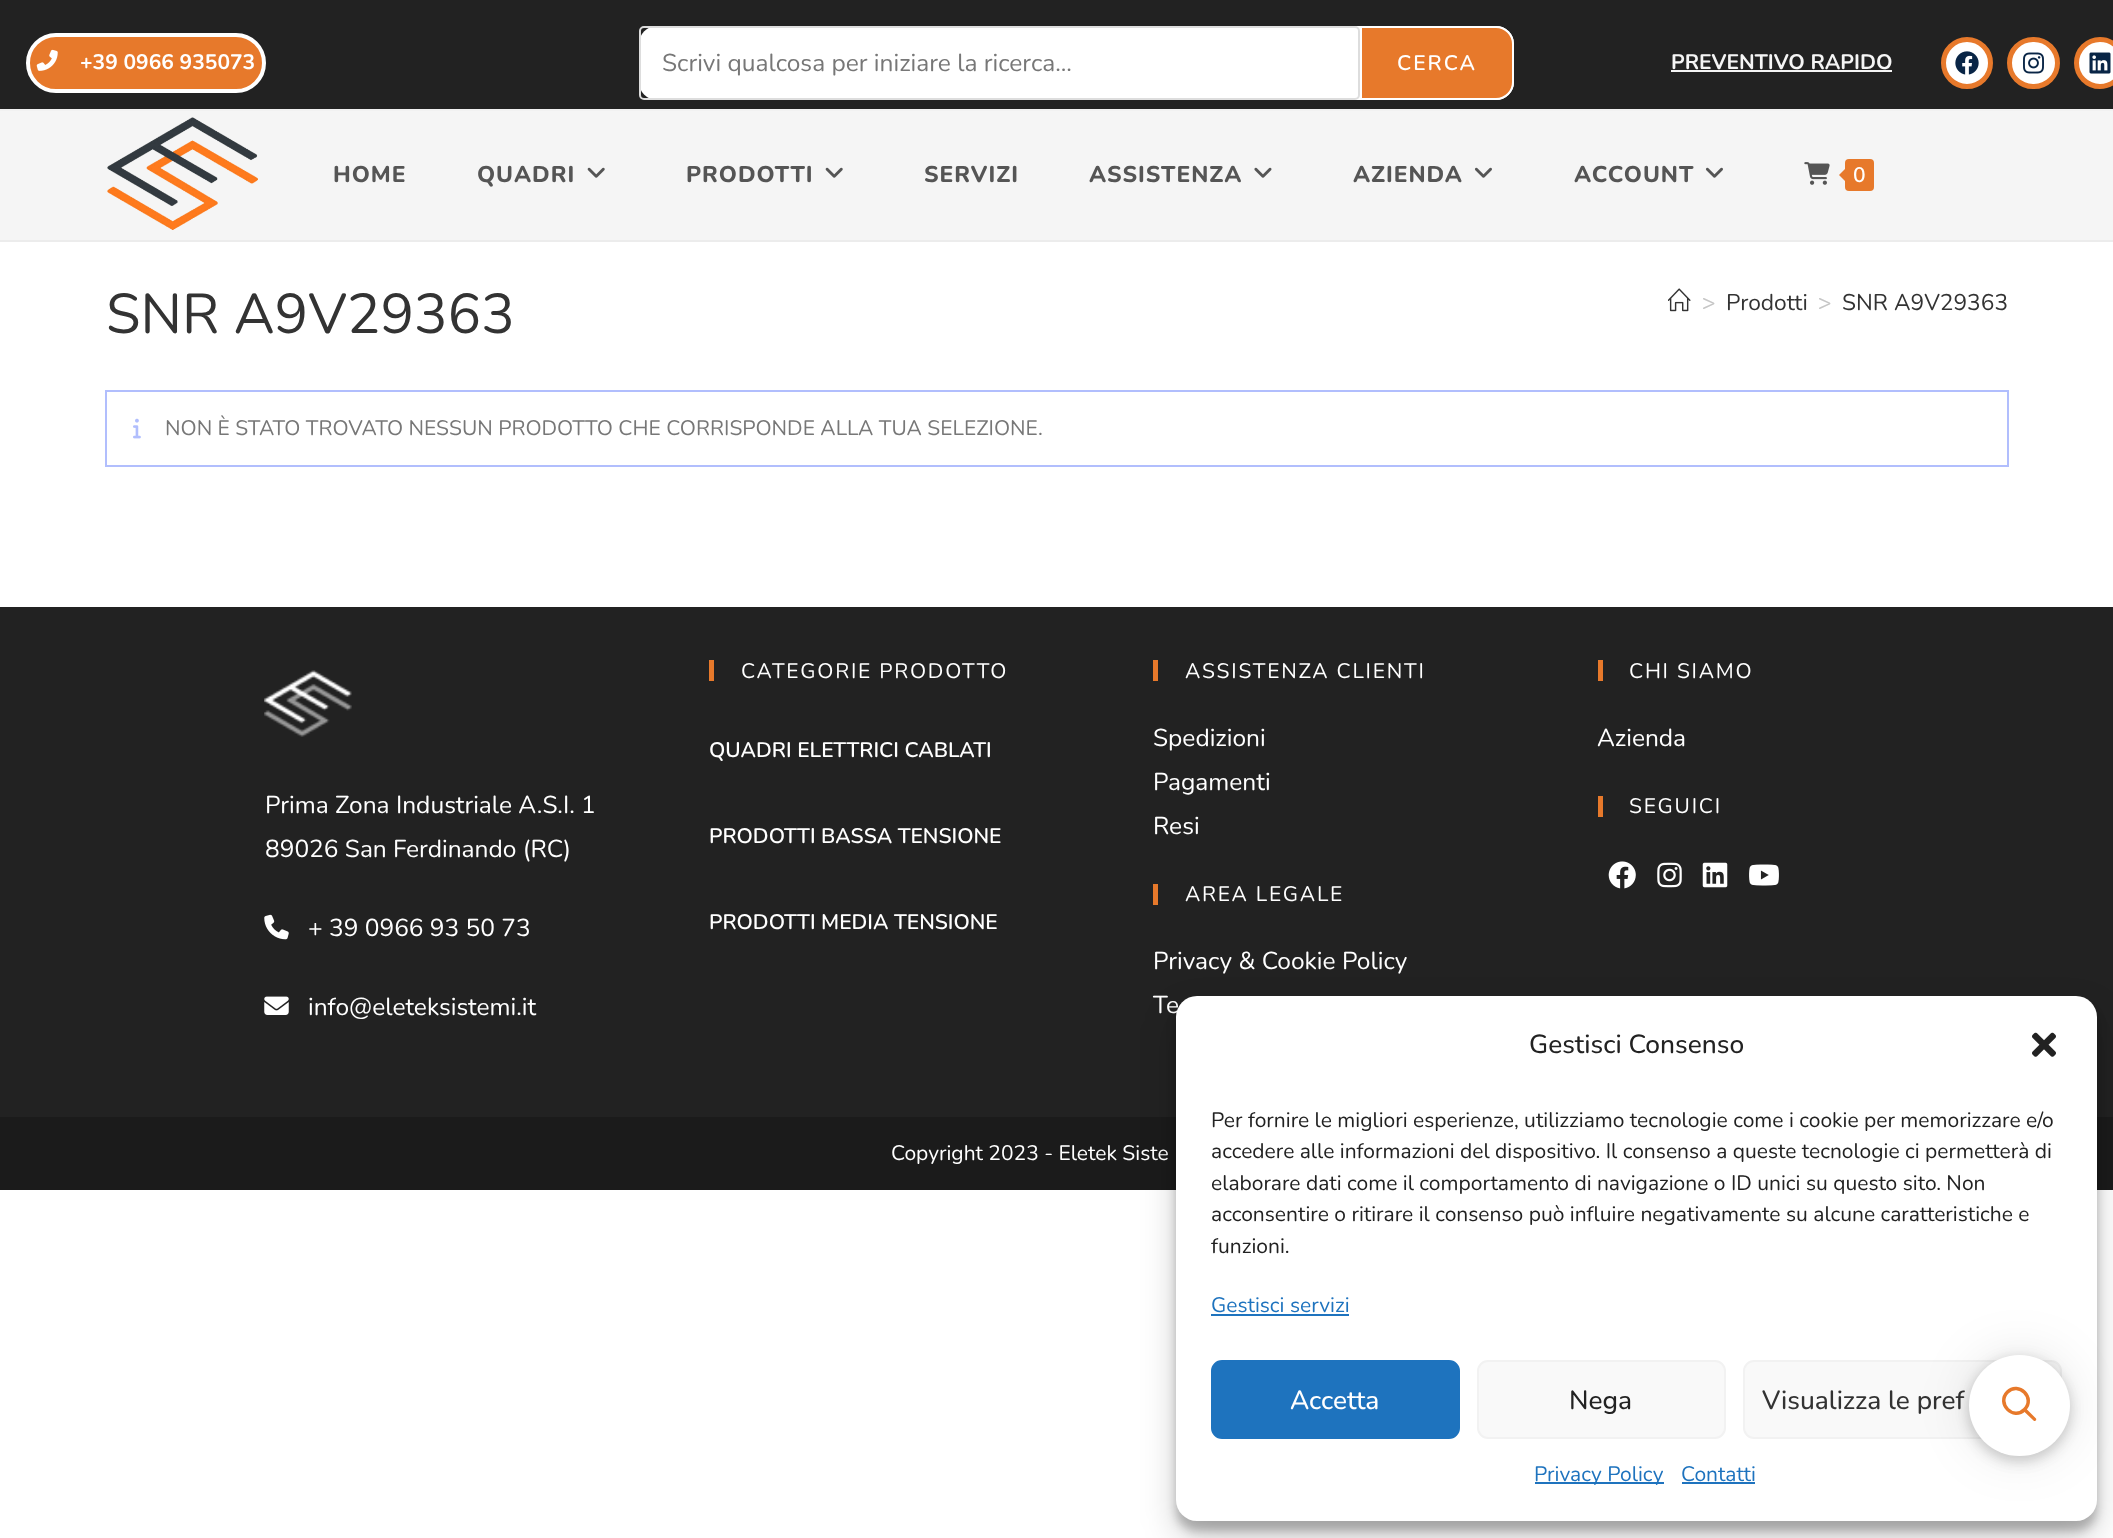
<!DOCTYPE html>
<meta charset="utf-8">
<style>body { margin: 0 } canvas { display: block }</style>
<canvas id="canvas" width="2113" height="1538"></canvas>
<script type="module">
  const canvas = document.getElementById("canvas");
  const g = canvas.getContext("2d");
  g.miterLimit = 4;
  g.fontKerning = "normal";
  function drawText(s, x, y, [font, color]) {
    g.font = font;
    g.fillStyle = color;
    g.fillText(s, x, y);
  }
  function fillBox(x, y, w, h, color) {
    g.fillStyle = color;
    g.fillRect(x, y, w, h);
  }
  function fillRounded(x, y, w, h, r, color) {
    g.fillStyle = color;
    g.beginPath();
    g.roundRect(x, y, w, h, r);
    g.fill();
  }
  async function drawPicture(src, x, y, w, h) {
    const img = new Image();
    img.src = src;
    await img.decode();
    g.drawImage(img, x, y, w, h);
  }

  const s1 = ["bold 21px Nunito", "#FFFFFF"];
  const s2 = ["24.5px Nunito", "#777777"];
  const s3 = ["600 21px Nunito", "#FFFFFF"];
  const s4 = ["bold 21px Nunito", "#F5F5F5"];
  const s5 = ["800 22.75px Nunito", "#555555"];
  const s6 = ["56px Nunito", "#333333"];
  const s7 = ["22.75px Nunito", "#C6C6C6"];
  const s8 = ["22.75px Nunito", "#333333"];
  const s9 = ["21px Nunito", "#777777"];
  const s10 = ["24.5px Nunito", "#FFFFFF"];
  const s11 = ["21px Nunito", "#FFFFFF"];
  const s12 = ["500 26.25px Nunito", "#222222"];
  const s13 = ["21px Nunito", "#222222"];
  const s14 = ["21px Nunito", "#1E73BE"];
  const s15 = ["500 26.25px Nunito", "#FFFFFF"];
  const s16 = ["500 26.25px Nunito", "#333333"];

  fillBox(0, 0, 2113, 1538, "#FFFFFF");
  fillBox(0, 109, 2113, 2, "#F1F1F1");
  fillBox(0, 0, 2113, 109, "#222222");
  g.fillStyle = "#E7792B";
  g.beginPath();
  g.roundRect(28, 35, 236, 56, 28);
  g.fill();
  g.strokeStyle = "#FFFFFF";
  g.lineWidth = 4;
  g.stroke();
  await drawPicture("pic1.png", 36, 49, 22, 22);
  drawText("+39 0966 935073", 80, 69, s1);
  fillRounded(639, 26, 875, 74, 18, "#FFFFFF");
  g.beginPath();
  g.roundRect(640, 27, 719, 72, 4);
  g.strokeStyle = "#DDDDDD";
  g.lineWidth = 2;
  g.stroke();
  drawText("Scrivi qualcosa per iniziare la ricerca...", 662, 71, s2);
  g.fillStyle = "#E7792B";
  g.beginPath();
  g.roundRect(1361, 27, 152, 72, [0, 17, 17, 0]);
  g.fill();
  g.strokeStyle = "#FFFFFF";
  g.stroke();
  g.letterSpacing = "2px";
  drawText("CERCA", 1397, 70, s3);
  g.letterSpacing = "0px";
  drawText("PREVENTIVO RAPIDO", 1671, 69, s4);
  fillBox(1671, 70, 221, 2, "#F5F5F5");
  g.fillStyle = "#FFFFFF";
  g.beginPath();
  g.arc(1967, 63, 23.5, 0, Math.PI * 2);
  g.fill();
  g.strokeStyle = "#E7792B";
  g.lineWidth = 5;
  g.stroke();
  await drawPicture("pic2.png", 1955, 51, 24, 24);
  g.beginPath();
  g.roundRect(2009.5, 39.5, 48, 47, 23.5);
  g.fill();
  g.stroke();
  await drawPicture("pic3.png", 2023, 52, 21, 22);
  g.beginPath();
  g.arc(2100, 63, 23.5, 0, Math.PI * 2);
  g.fill();
  g.stroke();
  await drawPicture("pic4.png", 2089, 52, 22, 22);
  fillBox(0, 111, 2113, 129, "#F5F5F5");
  fillBox(0, 240, 2113, 2, "#ECECEC");
  await drawPicture("pic5.png", 107, 117, 151, 113);
  g.letterSpacing = "1px";
  drawText("HOME", 333, 182, s5);
  drawText("QUADRI", 477, 182, s5);
  await drawPicture("pic6.png", 587, 167, 18, 11);
  drawText("PRODOTTI", 686, 182, s5);
  await drawPicture("pic6.png", 825, 167, 18, 11);
  drawText("SERVIZI", 924, 182, s5);
  drawText("ASSISTENZA", 1089, 182, s5);
  await drawPicture("pic7.png", 1254, 167, 18, 11);
  drawText("AZIENDA", 1353, 182, s5);
  await drawPicture("pic8.png", 1474, 167, 18, 11);
  drawText("ACCOUNT", 1574, 182, s5);
  await drawPicture("pic8.png", 1705, 167, 18, 11);
  await drawPicture("pic9.png", 1804, 162, 26, 23);
  fillRounded(1845, 159, 29, 32, 4, "#E7792B");
  g.beginPath();
  g.moveTo(1848, 166);
  g.lineTo(1848, 184);
  g.lineTo(1839, 175);
  g.closePath();
  g.fill();
  g.letterSpacing = "0px";
  drawText("0", 1853, 182, s3);
  drawText("SNR A9V29363", 106, 333, s6);
  await drawPicture("pic10.png", 1668, 288, 23, 24);
  drawText(">", 1702, 310, s7);
  drawText("Prodotti", 1726, 310, s8);
  drawText(">", 1818, 310, s7);
  drawText("SNR A9V29363", 1842, 310, s8);
  g.strokeStyle = "#B1BEFD";
  g.lineWidth = 2;
  g.strokeRect(106, 391, 1902, 75);
  await drawPicture("pic11.png", 133, 418, 8, 21);
  drawText("NON È STATO TROVATO NESSUN PRODOTTO CHE CORRISPONDE ALLA TUA SELEZIONE.", 165, 435, s9);
  fillBox(0, 607, 2113, 510, "#222222");
  await drawPicture("pic12.png", 264, 670, 88, 67);
  drawText("Prima Zona Industriale A.S.I. 1", 265, 813, s10);
  drawText("89026 San Ferdinando (RC)", 265, 857, s10);
  await drawPicture("pic13.png", 264, 914, 25, 26);
  drawText("+ 39 0966 93 50 73", 308, 936, s10);
  await drawPicture("pic14.png", 264, 996, 25, 19);
  drawText("info@eleteksistemi.it", 308, 1015, s10);
  fillBox(709, 660, 5, 21, "#E7792B");
  g.letterSpacing = "1.75px";
  drawText("CATEGORIE PRODOTTO", 741, 678, s11);
  g.letterSpacing = "0px";
  drawText("QUADRI ELETTRICI CABLATI", 709, 757, s3);
  drawText("PRODOTTI BASSA TENSIONE", 709, 843, s3);
  drawText("PRODOTTI MEDIA TENSIONE", 709, 929, s3);
  fillBox(1153, 660, 5, 21, "#E7792B");
  g.letterSpacing = "1.75px";
  drawText("ASSISTENZA CLIENTI", 1185, 678, s11);
  g.letterSpacing = "0px";
  drawText("Spedizioni", 1153, 746, s10);
  drawText("Pagamenti", 1153, 790, s10);
  drawText("Resi", 1153, 834, s10);
  fillBox(1153, 884, 5, 21, "#E7792B");
  g.letterSpacing = "1.75px";
  drawText("AREA LEGALE", 1185, 901, s11);
  g.letterSpacing = "0px";
  drawText("Privacy & Cookie Policy", 1153, 969, s10);
  drawText("Te", 1153, 1013, s10);
  fillBox(1598, 660, 5, 21, "#E7792B");
  g.letterSpacing = "1.75px";
  drawText("CHI SIAMO", 1629, 678, s11);
  g.letterSpacing = "0px";
  drawText("Azienda", 1597, 746, s10);
  fillBox(1598, 796, 5, 21, "#E7792B");
  g.letterSpacing = "1.75px";
  drawText("SEGUICI", 1629, 813, s11);
  await drawPicture("pic15.png", 1608, 861, 28, 28);
  await drawPicture("pic16.png", 1657, 862, 25, 26);
  await drawPicture("pic17.png", 1702, 862, 26, 26);
  await drawPicture("pic18.png", 1749, 864, 30, 22);
  fillBox(0, 1117, 2113, 73, "#1B1B1B");
  g.letterSpacing = "0px";
  drawText("Copyright 2023 - Eletek Siste", 891, 1160, s11);
  g.fillStyle = "rgba(0, 0, 0, 0.23)";
  g.filter = "blur(5px)";
  g.beginPath();
  g.roundRect(1176, 1006, 921, 525, 21);
  g.fill();
  g.filter = "none";
  g.fillStyle = "rgba(0, 0, 0, 0.19)";
  g.filter = "blur(17.5px)";
  g.beginPath();
  g.roundRect(1176, 1013, 921, 525, 21);
  g.fill();
  g.filter = "none";
  fillRounded(1176, 996, 921, 525, 21, "#FFFFFF");
  drawText("Gestisci Consenso", 1529, 1053, s12);
  await drawPicture("pic19.png", 2032, 1032, 24, 25);
  drawText("Per fornire le migliori esperienze, utilizziamo tecnologie come i cookie per memorizzare e/o", 1211, 1127, s13);
  drawText("accedere alle informazioni del dispositivo. Il consenso a queste tecnologie ci permetterà di", 1211, 1158, s13);
  drawText("elaborare dati come il comportamento di navigazione o ID unici su questo sito. Non", 1211, 1190, s13);
  drawText("acconsentire o ritirare il consenso può influire negativamente su alcune caratteristiche e", 1211, 1221, s13);
  drawText("funzioni.", 1211, 1253, s13);
  drawText("Gestisci servizi", 1211, 1312, s14);
  fillBox(1211, 1314, 138, 2, "#1E73BE");
  g.beginPath();
  g.roundRect(1212, 1361, 247, 77, 10);
  g.fill();
  g.strokeStyle = "#1E73BE";
  g.stroke();
  drawText("Accetta", 1290, 1409, s15);
  g.fillStyle = "#F9F9F9";
  g.beginPath();
  g.roundRect(1478, 1361, 247, 77, 10);
  g.fill();
  g.strokeStyle = "#F2F2F2";
  g.stroke();
  drawText("Nega", 1569, 1409, s12);
  g.fillStyle = "#F9F9F9";
  g.beginPath();
  g.roundRect(1744, 1361, 317, 77, 10);
  g.fill();
  g.stroke();
  drawText("Visualizza le pref", 1762, 1409, s16);
  fillBox(1535, 1482, 129, 2, "#1E73BE");
  drawText("Privacy Policy", 1534, 1481, s14);
  drawText("Contatti", 1681, 1481, s14);
  fillBox(1682, 1482, 73, 2, "#1E73BE");
  g.fillStyle = "rgba(0, 0, 0, 0.05)";
  g.filter = "blur(7px)";
  g.beginPath();
  g.roundRect(1969, 1362, 101, 101, 50.5);
  g.fill();
  g.filter = "none";
  g.fillStyle = "rgba(0, 0, 0, 0.15)";
  g.filter = "blur(7px)";
  g.beginPath();
  g.roundRect(1969, 1358, 101, 102, 50.5);
  g.fill();
  g.filter = "none";
  g.fillStyle = "rgba(0, 0, 0, 0.1)";
  g.filter = "blur(26px)";
  g.beginPath();
  g.roundRect(1969, 1355, 101, 101, 50.5);
  g.fill();
  g.filter = "none";
  g.fillStyle = "#FFFFFF";
  g.beginPath();
  g.arc(2019.5, 1405.5, 50.5, 0, Math.PI * 2);
  g.fill();
  g.beginPath();
  g.moveTo(2007.5, 1392);
  g.bezierCurveTo(2018.5, 1381, 2036, 1398, 2024.5, 1409.5);
  g.bezierCurveTo(2013.5, 1421, 1996, 1403.5, 2007.5, 1392);
  g.closePath();
  g.strokeStyle = "#E7792B";
  g.lineWidth = 3.5;
  g.stroke();
  g.fillStyle = "#E7792B";
  g.beginPath();
  g.moveTo(2023.5, 1411);
  g.lineTo(2026, 1408.5);
  g.lineTo(2036, 1418.5);
  g.bezierCurveTo(2037, 1420, 2035, 1422, 2033.5, 1420.5);
  g.closePath();
  g.fill();
</script>
